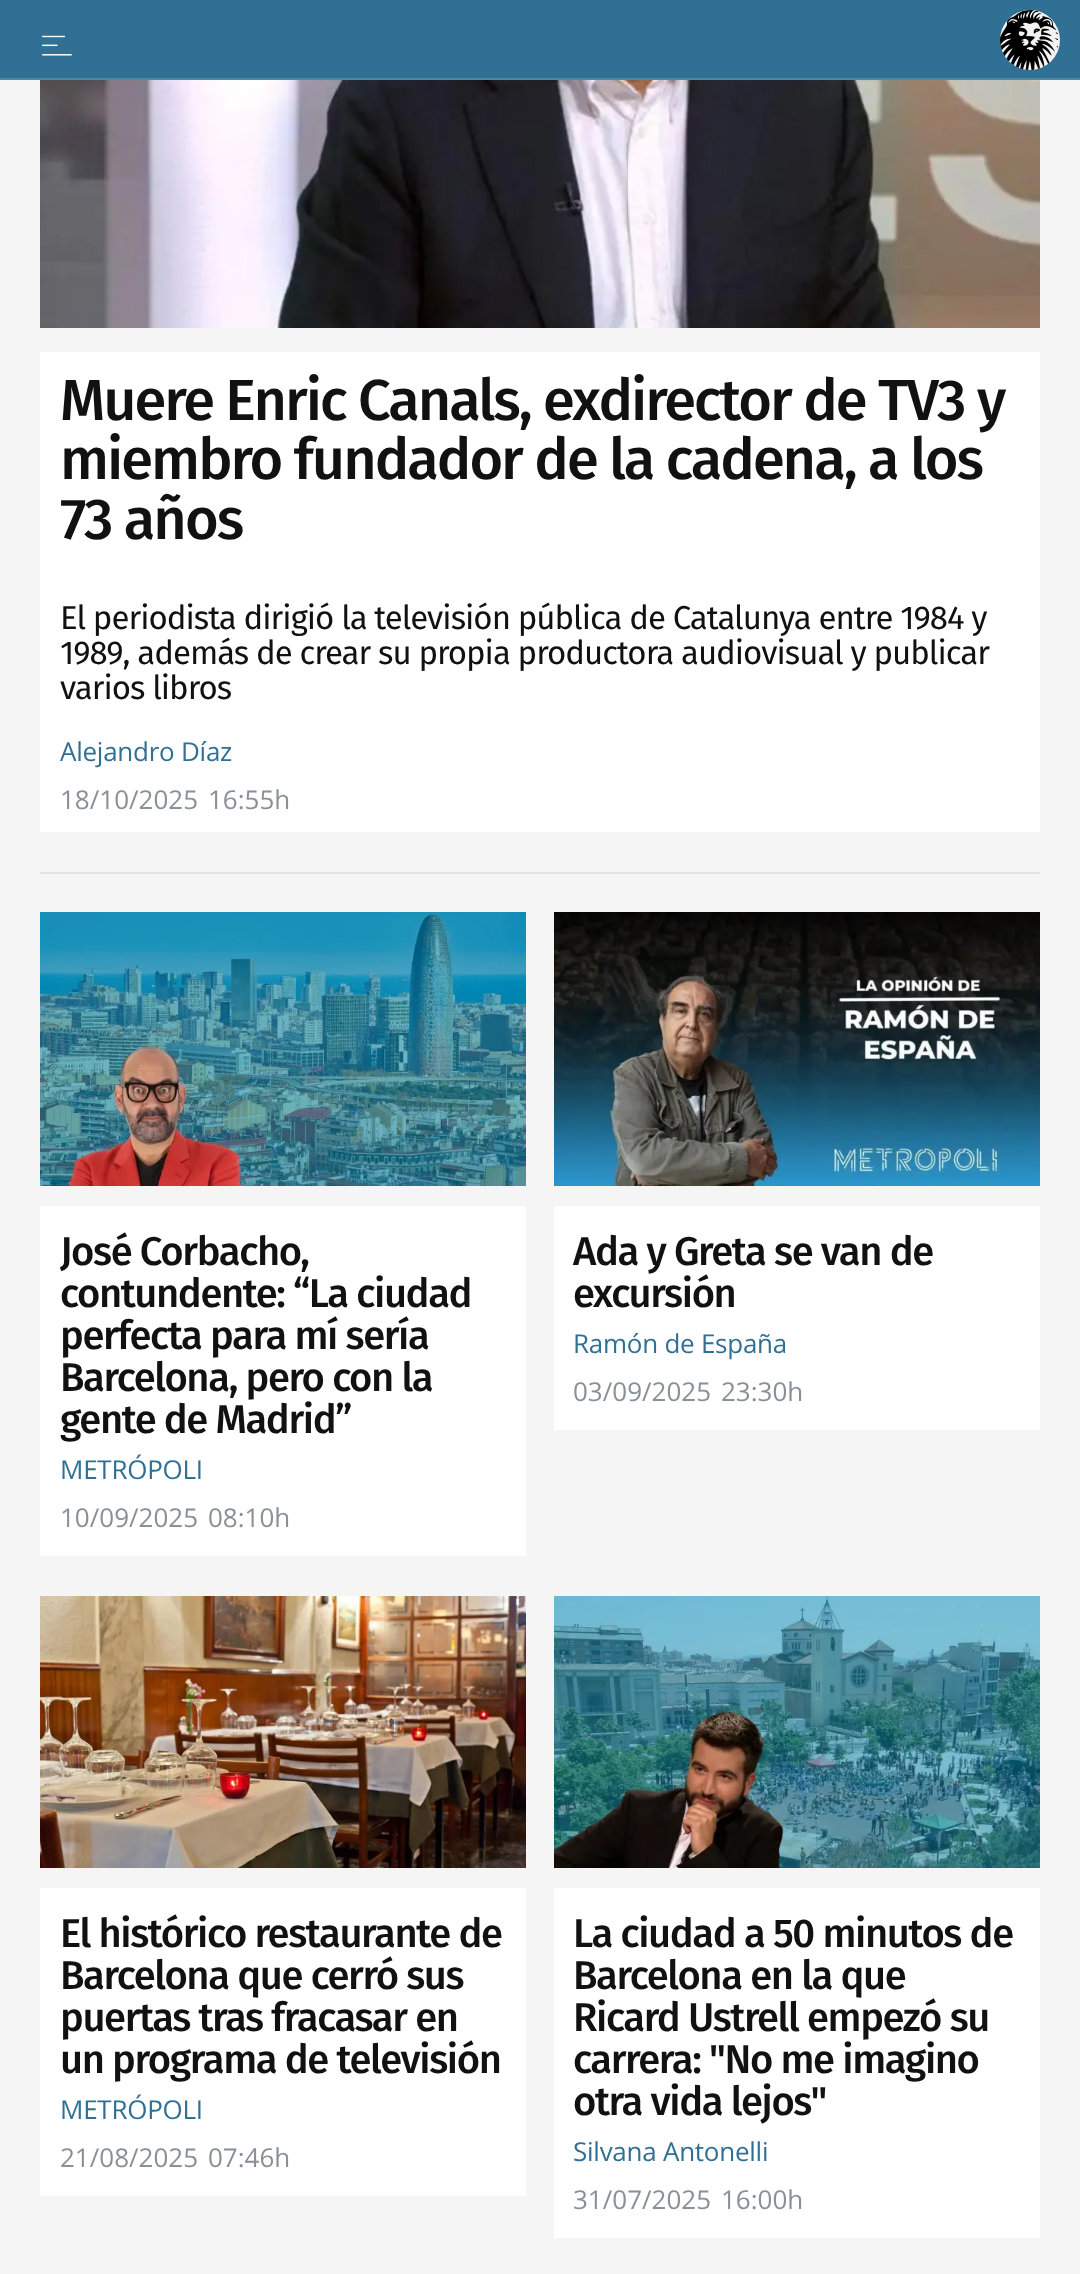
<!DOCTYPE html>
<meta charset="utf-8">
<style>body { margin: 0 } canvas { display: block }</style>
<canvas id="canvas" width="1080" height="2274"></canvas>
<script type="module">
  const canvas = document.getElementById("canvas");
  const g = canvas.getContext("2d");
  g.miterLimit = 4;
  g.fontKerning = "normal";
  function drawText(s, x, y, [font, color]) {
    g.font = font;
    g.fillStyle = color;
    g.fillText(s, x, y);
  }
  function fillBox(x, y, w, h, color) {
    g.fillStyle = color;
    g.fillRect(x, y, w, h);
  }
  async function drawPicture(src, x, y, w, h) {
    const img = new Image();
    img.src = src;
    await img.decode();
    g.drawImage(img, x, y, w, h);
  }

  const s1 = ["500 57.75px Fira Sans", "#111111"];
  const s2 = ["33px Fira Sans", "#111111"];
  const s3 = ["26px Open Sans", "#307094"];
  const s4 = ["26px Open Sans", "#8A9097"];
  const s5 = ["500 40px Fira Sans", "#111111"];

  fillBox(0, 0, 1080, 2274, "#F5F5F5");
  fillBox(0, 0, 1080, 78, "#307094");
  await drawPicture("pic1.png", 42, 35, 30, 21);
  g.fillStyle = "#F3F3F3";
  g.beginPath();
  g.arc(1030, 40, 30, 0, Math.PI * 2);
  g.fill();
  await drawPicture("pic2.png", 1000, 10, 58, 60);
  fillBox(0, 78, 1080, 2, "#5187A5");
  await drawPicture("pic3.png", 40, 80, 1000, 248);
  fillBox(40, 352, 1000, 480, "#FFFFFF");
  g.letterSpacing = "-2px";
  drawText("Muere Enric Canals, exdirector de TV3 y", 60, 420, s1);
  drawText("miembro fundador de la cadena, a los", 60, 479, s1);
  drawText("73 años", 60, 539, s1);
  g.letterSpacing = "-1px";
  drawText("El periodista dirigió la televisión pública de Catalunya entre 1984 y", 60, 629, s2);
  drawText("1989, además de crear su propia productora audiovisual y publicar", 60, 664, s2);
  drawText("varios libros", 60, 699, s2);
  g.letterSpacing = "-0.25px";
  drawText("Alejandro Díaz", 60, 761, s3);
  g.letterSpacing = "0px";
  drawText("18/10/2025", 60, 809, s4);
  drawText("16:55h", 208, 809, s4);
  fillBox(40, 872, 1000, 2, "#E3E3E3");
  await drawPicture("pic4.png", 40, 912, 486, 274);
  fillBox(40, 1206, 486, 350, "#FFFFFF");
  g.letterSpacing = "-1.4px";
  drawText("José Corbacho,", 60, 1265, s5);
  drawText("contundente: “La ciudad", 60, 1307, s5);
  drawText("perfecta para mí sería", 60, 1349, s5);
  drawText("Barcelona, pero con la", 60, 1391, s5);
  drawText("gente de Madrid”", 60, 1433, s5);
  g.letterSpacing = "-0.25px";
  drawText("METRÓPOLI", 60, 1479, s3);
  g.letterSpacing = "0px";
  drawText("10/09/2025", 60, 1527, s4);
  drawText("08:10h", 208, 1527, s4);
  await drawPicture("pic5.png", 554, 912, 486, 274);
  fillBox(554, 1206, 486, 224, "#FFFFFF");
  g.letterSpacing = "-1.4px";
  drawText("Ada y Greta se van de", 573, 1265, s5);
  drawText("excursión", 573, 1307, s5);
  g.letterSpacing = "-0.25px";
  drawText("Ramón de España", 573, 1353, s3);
  g.letterSpacing = "0px";
  drawText("03/09/2025", 573, 1401, s4);
  drawText("23:30h", 721, 1401, s4);
  await drawPicture("pic6.png", 40, 1596, 486, 272);
  fillBox(40, 1888, 486, 308, "#FFFFFF");
  g.letterSpacing = "-1.4px";
  drawText("El histórico restaurante de", 60, 1947, s5);
  drawText("Barcelona que cerró sus", 60, 1989, s5);
  drawText("puertas tras fracasar en", 60, 2031, s5);
  drawText("un programa de televisión", 60, 2073, s5);
  g.letterSpacing = "-0.25px";
  drawText("METRÓPOLI", 60, 2119, s3);
  g.letterSpacing = "0px";
  drawText("21/08/2025", 60, 2167, s4);
  drawText("07:46h", 208, 2167, s4);
  await drawPicture("pic7.png", 554, 1596, 486, 272);
  fillBox(554, 1888, 486, 350, "#FFFFFF");
  g.letterSpacing = "-1.4px";
  drawText("La ciudad a 50 minutos de", 573, 1947, s5);
  drawText("Barcelona en la que", 573, 1989, s5);
  drawText("Ricard Ustrell empezó su", 573, 2031, s5);
  drawText("carrera: \"No me imagino", 573, 2073, s5);
  drawText("otra vida lejos\"", 573, 2115, s5);
  g.letterSpacing = "-0.25px";
  drawText("Silvana Antonelli", 573, 2161, s3);
  g.letterSpacing = "0px";
  drawText("31/07/2025", 573, 2209, s4);
  drawText("16:00h", 721, 2209, s4);
</script>
